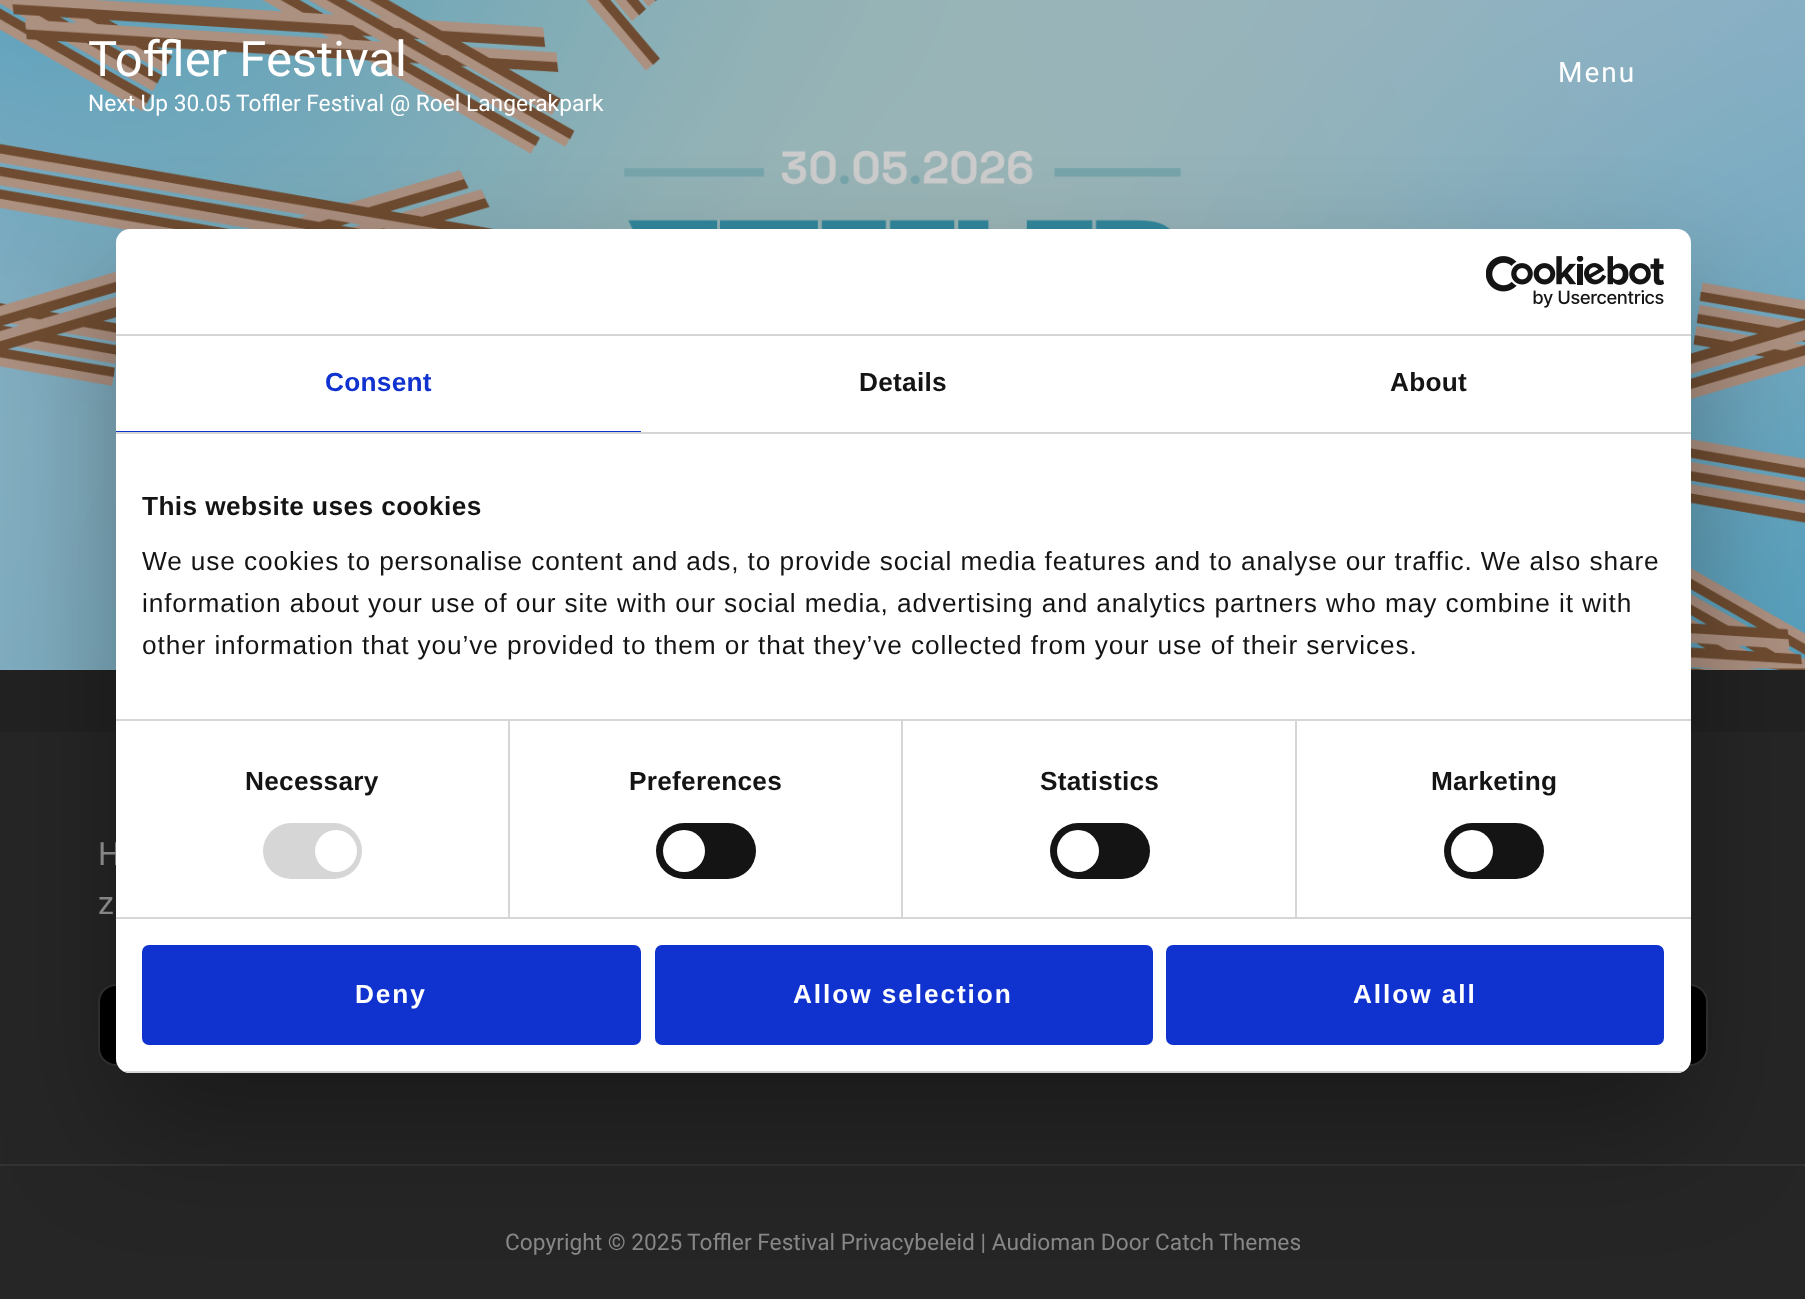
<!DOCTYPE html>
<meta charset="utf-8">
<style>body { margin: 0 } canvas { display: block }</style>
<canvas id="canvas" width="1805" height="1299"></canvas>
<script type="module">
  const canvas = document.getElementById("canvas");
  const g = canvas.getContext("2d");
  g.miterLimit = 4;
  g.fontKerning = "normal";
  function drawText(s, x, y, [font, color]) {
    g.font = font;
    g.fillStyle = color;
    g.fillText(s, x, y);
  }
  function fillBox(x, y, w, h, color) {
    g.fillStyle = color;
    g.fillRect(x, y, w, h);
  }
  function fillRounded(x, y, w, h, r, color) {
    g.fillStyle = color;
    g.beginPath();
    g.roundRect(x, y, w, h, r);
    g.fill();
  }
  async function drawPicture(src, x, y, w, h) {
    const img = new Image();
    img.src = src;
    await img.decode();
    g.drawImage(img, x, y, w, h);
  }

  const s1 = ["49px Roboto", "#FFFFFF"];
  const s2 = ["22.75px Roboto", "#FFFFFF"];
  const s3 = ["28px Roboto", "#FFFFFF"];
  const s4 = ["32px Roboto", "#999999"];
  const s5 = ["22.75px Roboto", "#888888"];
  const s6 = ["bold 26.25px Liberation Sans", "#1032CF"];
  const s7 = ["bold 26.25px Liberation Sans", "#141414"];
  const s8 = ["26.25px Liberation Sans", "#141414"];
  const s9 = ["bold 26.25px Liberation Sans", "#FFFFFF"];

  fillBox(0, 0, 1805, 1299, "#262626");
  await drawPicture("pic2.png", 0, 668, 1805, 2);
  await drawPicture("pic1.png", 0, 0, 1805, 669);
  drawText("Toffler Festival", 88, 76, s1);
  drawText("Next Up 30.05 Toffler Festival @ Roel Langerakpark", 88, 111, s2);
  g.letterSpacing = "2px";
  drawText("Menu", 1558, 82, s3);
  fillBox(0, 670, 1805, 62, "#222222");
  fillBox(0, 1164, 1805, 2, "#333333");
  g.letterSpacing = "0px";
  drawText("H", 98, 865, s4);
  drawText("z", 98, 914, s4);
  g.fillStyle = "#000000";
  g.beginPath();
  g.roundRect(99, 985, 1608, 80, 17);
  g.fill();
  g.strokeStyle = "#333333";
  g.lineWidth = 2;
  g.stroke();
  drawText("Copyright © 2025", 505, 1250, s5);
  drawText("Toffler Festival Privacybeleid | Audioman Door Catch Themes", 687, 1250, s5);
  g.fillStyle = "rgba(0, 0, 0, 0.3)";
  g.filter = "blur(59.5px)";
  g.beginPath();
  g.roundRect(116, 285, 1575, 844, 14);
  g.fill();
  g.filter = "none";
  fillRounded(116, 229, 1575, 844, 14, "#FFFFFF");
  fillBox(116, 334, 1575, 2, "#D6D6D6");
  await drawPicture("pic3.png", 1486, 256, 178, 52);
  fillBox(116, 432, 1575, 2, "#D6D6D6");
  fillBox(116, 431, 525, 1, "#1032CF");
  g.letterSpacing = "0.25px";
  drawText("Consent", 325, 391, s6);
  drawText("Details", 859, 391, s7);
  drawText("About", 1390, 391, s7);
  fillBox(116, 719, 1575, 2, "#D6D6D6");
  g.letterSpacing = "0.4px";
  drawText("This website uses cookies", 142, 515, s7);
  g.letterSpacing = "0.88px";
  drawText("We use cookies to personalise content and ads, to provide social media features and to analyse our traffic. We also share", 142, 570, s8);
  drawText("information about your use of our site with our social media, advertising and analytics partners who may combine it with", 142, 612, s8);
  drawText("other information that you’ve provided to them or that they’ve collected from your use of their services.", 142, 654, s8);
  fillBox(116, 917, 1575, 2, "#D6D6D6");
  fillBox(508, 721, 2, 196, "#D6D6D6");
  g.letterSpacing = "0.25px";
  drawText("Necessary", 245, 790, s7);
  fillRounded(263, 823, 99, 56, 28, "#D6D6D6");
  g.fillStyle = "#FFFFFF";
  g.beginPath();
  g.arc(336, 851, 21, 0, Math.PI * 2);
  g.fill();
  fillBox(901, 721, 2, 196, "#D6D6D6");
  drawText("Preferences", 629, 790, s7);
  fillRounded(656, 823, 100, 56, 28, "#141414");
  g.fillStyle = "#FFFFFF";
  g.beginPath();
  g.arc(684, 851, 21, 0, Math.PI * 2);
  g.fill();
  fillBox(1295, 721, 2, 196, "#D6D6D6");
  drawText("Statistics", 1040, 790, s7);
  fillRounded(1050, 823, 100, 56, 28, "#141414");
  g.fillStyle = "#FFFFFF";
  g.beginPath();
  g.arc(1078, 851, 21, 0, Math.PI * 2);
  g.fill();
  drawText("Marketing", 1431, 790, s7);
  fillRounded(1444, 823, 100, 56, 28, "#141414");
  g.fillStyle = "#FFFFFF";
  g.beginPath();
  g.arc(1472, 851, 21, 0, Math.PI * 2);
  g.fill();
  g.save();
  g.beginPath();
  g.roundRect(116, 229, 1575, 844, 14);
  g.clip();
  fillBox(116, 1071, 1575, 2, "#D6D6D6");
  g.restore();
  g.fillStyle = "#1032CF";
  g.beginPath();
  g.roundRect(144, 947, 495, 96, 5);
  g.fill();
  g.strokeStyle = "#1032CF";
  g.lineWidth = 4;
  g.stroke();
  g.letterSpacing = "1.9px";
  drawText("Deny", 355, 1003, s9);
  g.fillStyle = "#1032CF";
  g.beginPath();
  g.roundRect(657, 947, 494, 96, 5);
  g.fill();
  g.stroke();
  drawText("Allow selection", 793, 1003, s9);
  g.fillStyle = "#1032CF";
  g.beginPath();
  g.roundRect(1168, 947, 494, 96, 5);
  g.fill();
  g.stroke();
  drawText("Allow all", 1353, 1003, s9);
</script>
